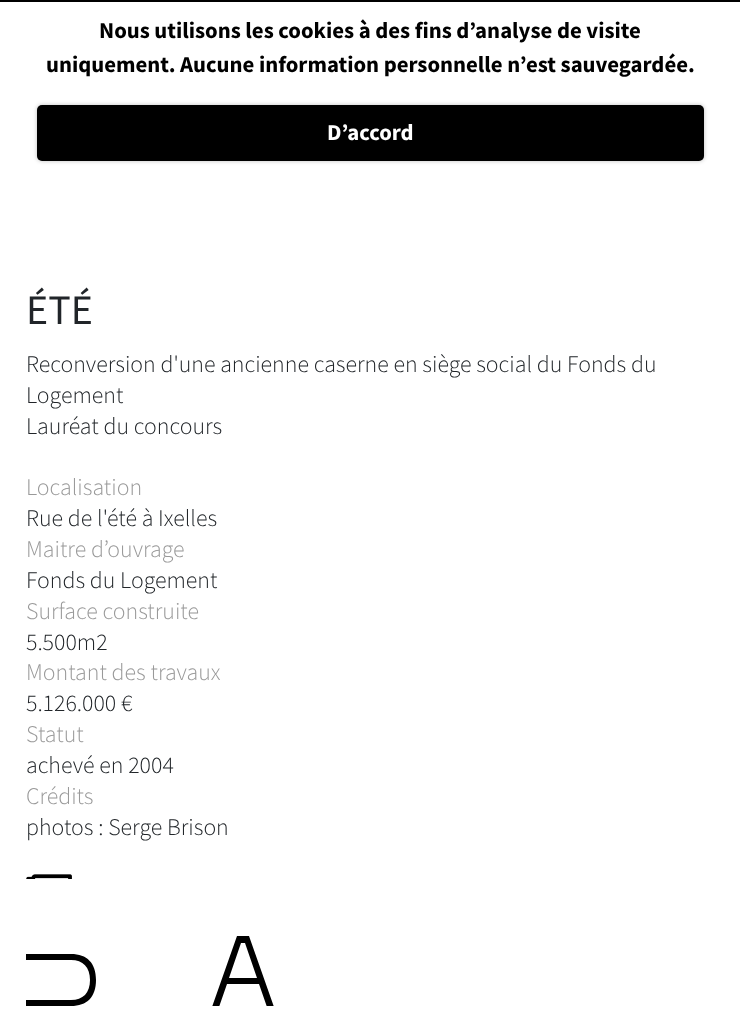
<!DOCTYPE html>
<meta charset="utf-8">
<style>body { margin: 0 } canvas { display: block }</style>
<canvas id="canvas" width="740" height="1036"></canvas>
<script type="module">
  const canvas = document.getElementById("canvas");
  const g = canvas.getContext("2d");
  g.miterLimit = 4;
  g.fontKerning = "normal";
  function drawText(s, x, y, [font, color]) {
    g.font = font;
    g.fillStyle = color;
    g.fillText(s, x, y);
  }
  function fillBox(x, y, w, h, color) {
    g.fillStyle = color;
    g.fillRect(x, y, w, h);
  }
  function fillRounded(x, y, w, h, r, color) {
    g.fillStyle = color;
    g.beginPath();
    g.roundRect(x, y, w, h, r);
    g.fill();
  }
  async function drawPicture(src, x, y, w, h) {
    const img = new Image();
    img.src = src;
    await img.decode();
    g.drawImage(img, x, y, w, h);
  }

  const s1 = ["bold 22.75px Source Sans Pro", "#000000"];
  const s2 = ["bold 22.75px Source Sans Pro", "#FFFFFF"];
  const s3 = ["42px Source Sans Pro", "#212529"];
  const s4 = ["300 23.8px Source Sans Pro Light", "#212529"];
  const s5 = ["300 23.8px Source Sans Pro Light", "#999999"];

  fillBox(0, 0, 740, 1036, "#FFFFFF");
  fillBox(0, 0, 740, 2, "#000000");
  drawText("Nous utilisons les cookies à des fins d’analyse de visite", 99, 38, s1);
  drawText("uniquement. Aucune information personnelle n’est sauvegardée.", 46, 72, s1);
  g.fillStyle = "rgba(0, 0, 0, 0.25)";
  g.filter = "blur(2px)";
  g.beginPath();
  g.roundRect(37, 105, 667, 56, 5);
  g.fill();
  g.filter = "none";
  fillRounded(37, 105, 667, 56, 5, "#000000");
  drawText("D’accord", 327, 140, s2);
  drawText("ÉTÉ", 26, 324, s3);
  drawText("Reconversion d'une ancienne caserne en siège social du Fonds du", 26, 372, s4);
  drawText("Logement", 26, 403, s4);
  drawText("Lauréat du concours", 26, 434, s4);
  drawText("Localisation", 26, 495, s5);
  drawText("Rue de l'été à Ixelles", 26, 526, s4);
  drawText("Maitre d’ouvrage", 26, 557, s5);
  drawText("Fonds du Logement", 26, 588, s4);
  drawText("Surface construite", 26, 619, s5);
  drawText("5.500m2", 26, 650, s4);
  drawText("Montant des travaux", 26, 680, s5);
  drawText("5.126.000 €", 26, 711, s4);
  drawText("Statut", 26, 742, s5);
  drawText("achevé en 2004", 26, 773, s4);
  drawText("Crédits", 26, 804, s5);
  drawText("photos : Serge Brison", 26, 835, s4);
  await drawPicture("pic1.png", 26, 874, 46, 5);
  g.fillStyle = "#000000";
  g.beginPath();
  g.moveTo(26, 960);
  g.lineTo(71, 960);
  g.bezierCurveTo(83, 960, 90, 967, 90, 980);
  g.bezierCurveTo(90, 993, 83, 1000, 71, 1000);
  g.lineTo(26, 1000);
  g.lineTo(26, 1006);
  g.lineTo(71, 1006);
  g.bezierCurveTo(87, 1006, 96, 997, 96, 980);
  g.bezierCurveTo(96, 963, 87, 954, 71, 954);
  g.lineTo(26, 954);
  g.closePath();
  g.fill();
  g.save();
  g.beginPath();
  g.rect(212, 936, 70, 70);
  g.clip();
  g.beginPath();
  g.moveTo(241, 943);
  g.lineTo(245, 943);
  g.lineTo(257, 978);
  g.lineTo(229, 978);
  g.closePath();
  g.moveTo(249, 936);
  g.lineTo(237, 936);
  g.lineTo(212, 1007);
  g.lineTo(219, 1007);
  g.lineTo(227, 984);
  g.lineTo(259, 984);
  g.lineTo(267, 1007);
  g.lineTo(274, 1007);
  g.closePath();
  g.fill();
  g.restore();
</script>
